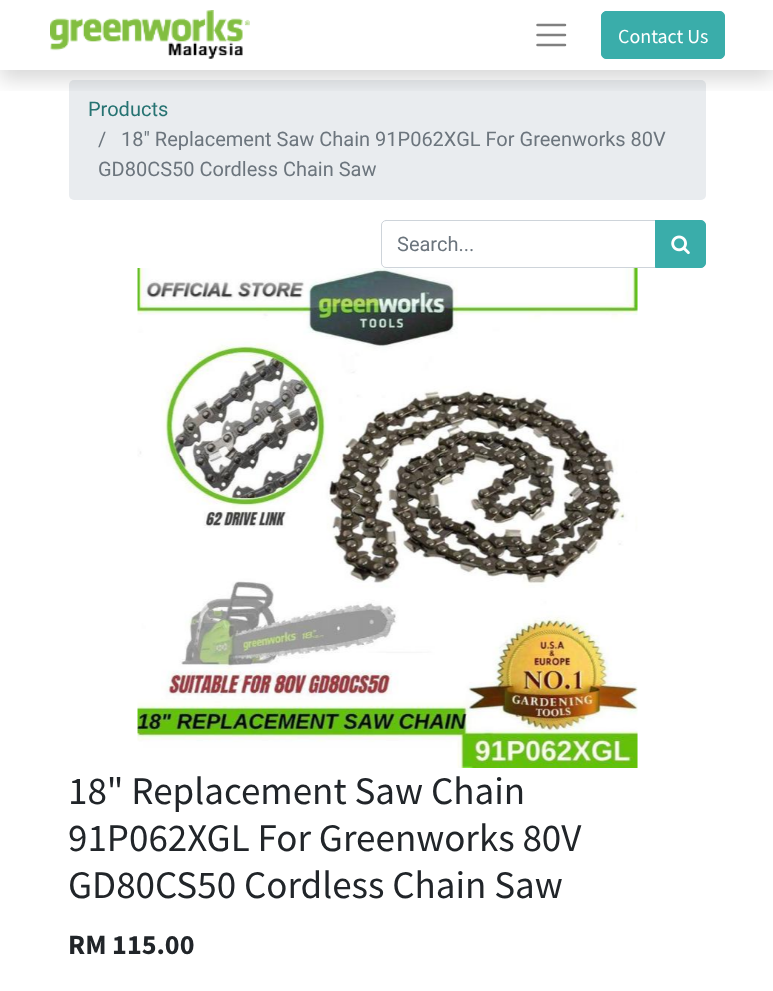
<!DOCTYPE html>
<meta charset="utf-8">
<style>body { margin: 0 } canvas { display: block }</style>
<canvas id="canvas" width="773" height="991"></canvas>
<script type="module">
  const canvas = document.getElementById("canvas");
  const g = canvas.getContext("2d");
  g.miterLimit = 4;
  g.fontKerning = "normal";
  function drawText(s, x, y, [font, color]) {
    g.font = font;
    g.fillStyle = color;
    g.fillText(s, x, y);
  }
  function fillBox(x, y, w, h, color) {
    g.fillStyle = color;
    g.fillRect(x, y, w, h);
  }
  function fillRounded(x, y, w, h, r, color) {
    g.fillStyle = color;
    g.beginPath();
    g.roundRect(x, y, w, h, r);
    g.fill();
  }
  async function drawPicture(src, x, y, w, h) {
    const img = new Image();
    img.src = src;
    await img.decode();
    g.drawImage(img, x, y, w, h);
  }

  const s1 = ["20px Source Sans Pro", "#FFFFFF"];
  const s2 = ["20px Roboto", "#267372"];
  const s3 = ["20px Roboto", "#6C757D"];
  const s4 = ["39.1px Source Sans Pro", "#212529"];
  const s5 = ["bold 28px Source Sans Pro", "#212529"];

  fillBox(0, 0, 773, 991, "#FFFFFF");
  fillRounded(69, 80, 637, 120, 5, "#E9ECEF");
  g.save();
  g.beginPath();
  g.rect(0, 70, 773, 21);
  g.clip();
  g.fillStyle = "rgba(0, 0, 0, 0.15)";
  g.filter = "blur(10px)";
  g.beginPath();
  g.rect(0, 10, 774, 70);
  g.fill();
  g.filter = "none";
  g.restore();
  await drawPicture("pic1.png", 50, 10, 200, 49);
  g.beginPath();
  g.moveTo(537.5, 25);
  g.lineTo(565, 25);
  g.moveTo(537.5, 35);
  g.lineTo(565, 35);
  g.moveTo(537.5, 45);
  g.lineTo(565, 45);
  g.strokeStyle = "#808080";
  g.lineWidth = 2.5;
  g.lineCap = "round";
  g.stroke();
  g.fillStyle = "#3AADAA";
  g.beginPath();
  g.roundRect(601.5, 11.5, 123, 47, 4.5);
  g.fill();
  g.strokeStyle = "#3AADAA";
  g.lineWidth = 1;
  g.stroke();
  drawText("Contact Us", 618, 43, s1);
  drawText("Products", 88, 116, s2);
  drawText("/", 98, 146, s3);
  drawText("18\" Replacement Saw Chain 91P062XGL For Greenworks 80V", 121, 146, s3);
  drawText("GD80CS50 Cordless Chain Saw", 98, 176, s3);
  g.beginPath();
  g.roundRect(381.5, 220.5, 274, 47, [4.5, 0, 0, 4.5]);
  g.strokeStyle = "#CED4DA";
  g.stroke();
  drawText("Search...", 397, 251, s3);
  g.fillStyle = "#3AADAA";
  g.beginPath();
  g.roundRect(655.5, 220.5, 50, 47, [0, 4.5, 4.5, 0]);
  g.fill();
  g.strokeStyle = "#3AADAA";
  g.stroke();
  await drawPicture("pic2.png", 671, 235, 19, 20);
  await drawPicture("pic3.png", 137, 268, 501, 500);
  drawText("18\" Replacement Saw Chain", 68, 804, s4);
  drawText("91P062XGL For Greenworks 80V", 68, 851, s4);
  drawText("GD80CS50 Cordless Chain Saw", 68, 898, s4);
  drawText("RM 115.00", 68, 954, s5);
</script>
